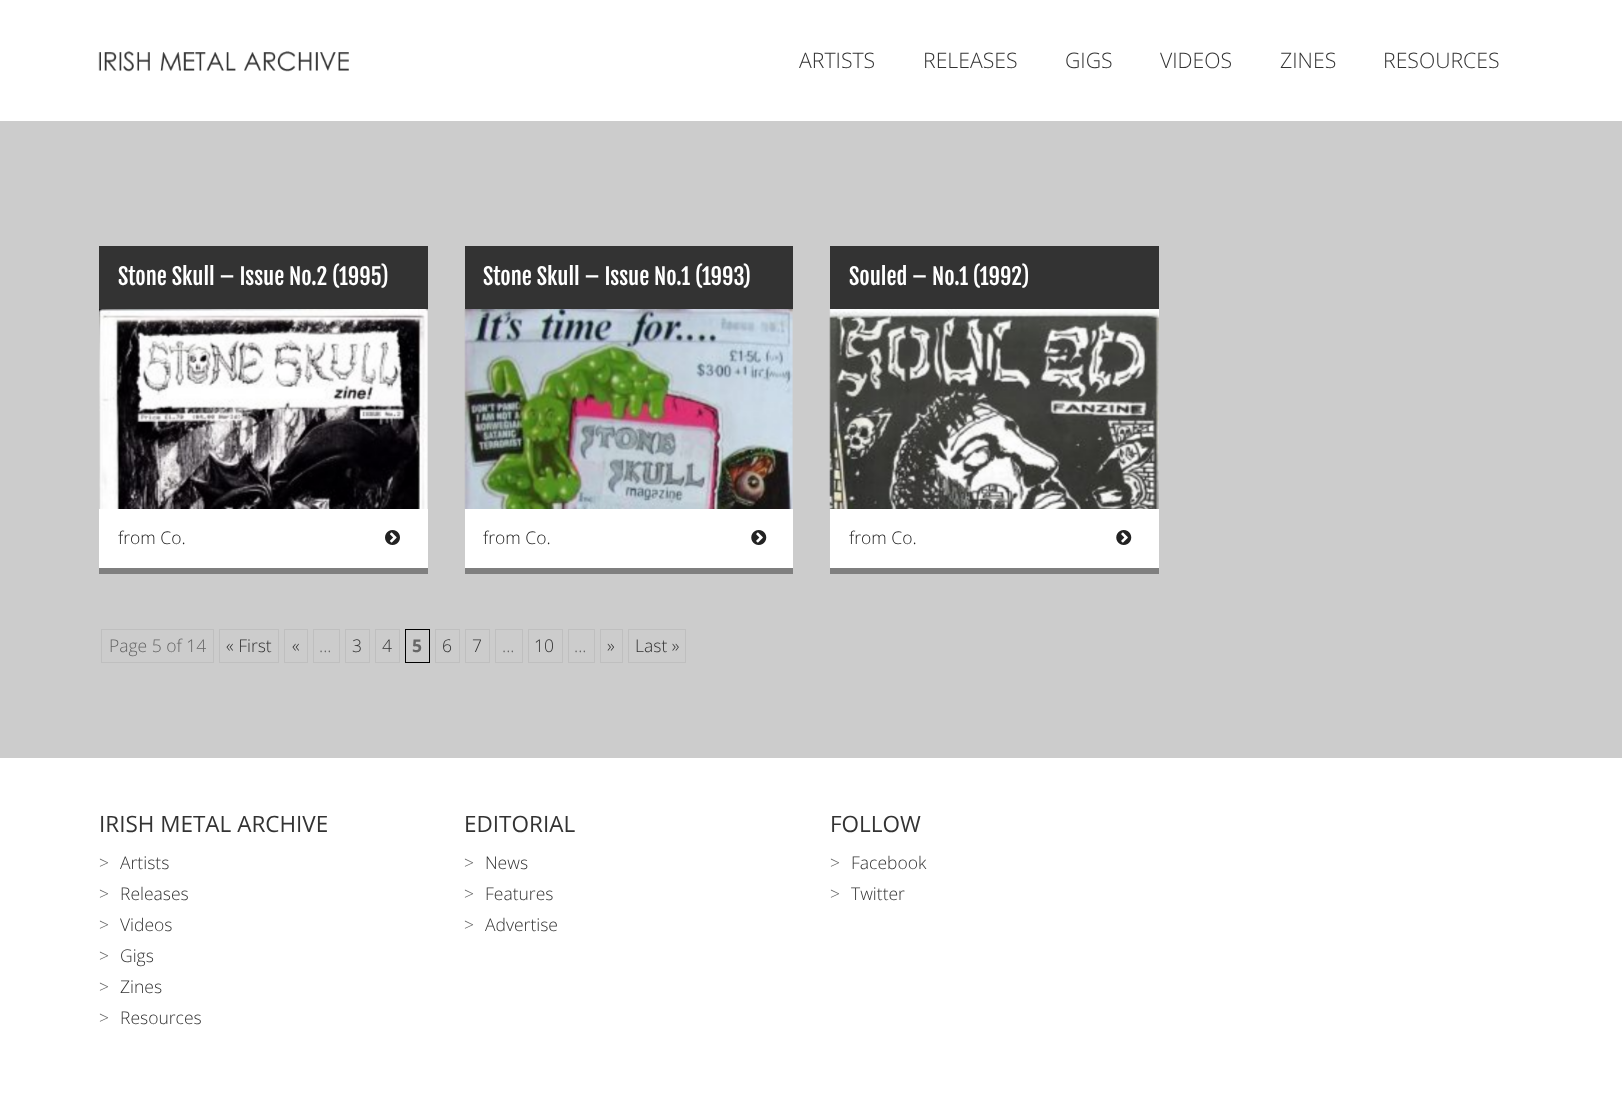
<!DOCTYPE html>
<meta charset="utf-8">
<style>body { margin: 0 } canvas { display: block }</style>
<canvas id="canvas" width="1622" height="1094"></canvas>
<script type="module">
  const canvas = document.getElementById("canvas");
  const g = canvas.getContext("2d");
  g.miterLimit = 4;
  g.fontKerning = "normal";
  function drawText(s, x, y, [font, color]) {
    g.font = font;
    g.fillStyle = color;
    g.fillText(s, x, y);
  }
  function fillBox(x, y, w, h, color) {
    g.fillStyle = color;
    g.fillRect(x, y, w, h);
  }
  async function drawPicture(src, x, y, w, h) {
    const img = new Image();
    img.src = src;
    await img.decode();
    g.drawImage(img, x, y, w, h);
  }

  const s1 = ["300 21.25px Open Sans", "#333333"];
  const s2 = ["22.5px Fjalla One", "#FFFFFF"];
  const s3 = ["300 17.5px Open Sans", "#222222"];
  const s4 = ["300 17.5px Open Sans", "#666666"];
  const s5 = ["300 17.5px Open Sans", "#333333"];
  const s6 = ["bold 17.5px Open Sans", "#666666"];
  const s7 = ["22.5px Open Sans", "#333333"];

  fillBox(0, 0, 1622, 1094, "#CCCCCC");
  fillBox(0, 0, 1622, 121, "#FFFFFF");
  await drawPicture("pic1.png", 98, 51, 251, 21);
  drawText("ARTISTS", 799, 68, s1);
  drawText("RELEASES", 923, 68, s1);
  drawText("GIGS", 1065, 68, s1);
  drawText("VIDEOS", 1160, 68, s1);
  drawText("ZINES", 1280, 68, s1);
  drawText("RESOURCES", 1383, 68, s1);
  fillBox(99, 568, 329, 6, "#7F7F7F");
  fillBox(99, 246, 329, 63, "#333333");
  drawText("Stone Skull – Issue No.2 (1995)", 118, 285, s2);
  await drawPicture("pic2.png", 99, 309, 329, 200);
  fillBox(99, 509, 329, 59, "#FFFFFF");
  drawText("from Co.", 118, 544, s3);
  await drawPicture("pic3.png", 385, 530, 15, 15);
  fillBox(465, 568, 328, 6, "#7F7F7F");
  fillBox(465, 246, 328, 63, "#333333");
  drawText("Stone Skull – Issue No.1 (1993)", 483, 285, s2);
  await drawPicture("pic4.png", 464, 309, 329, 200);
  fillBox(465, 509, 328, 59, "#FFFFFF");
  drawText("from Co.", 483, 544, s3);
  await drawPicture("pic5.png", 751, 530, 16, 15);
  fillBox(830, 568, 329, 6, "#7F7F7F");
  fillBox(830, 246, 329, 63, "#333333");
  drawText("Souled – No.1 (1992)", 849, 285, s2);
  await drawPicture("pic6.png", 829, 309, 330, 200);
  fillBox(830, 509, 329, 59, "#FFFFFF");
  drawText("from Co.", 849, 544, s3);
  await drawPicture("pic5.png", 1116, 530, 16, 15);
  g.strokeStyle = "#BFBFBF";
  g.strokeRect(101.5, 629.5, 112, 33);
  drawText("Page 5 of 14", 109, 652, s4);
  g.strokeRect(219.5, 629.5, 59, 33);
  drawText("« First", 226, 652, s5);
  g.strokeRect(284.5, 629.5, 23, 33);
  drawText("«", 292, 652, s5);
  g.strokeRect(345.5, 629.5, 24, 33);
  drawText("3", 352, 652, s5);
  g.strokeRect(375.5, 629.5, 24, 33);
  drawText("4", 382, 652, s5);
  g.strokeStyle = "#000000";
  g.strokeRect(405.5, 629.5, 24, 33);
  drawText("5", 412, 652, s6);
  g.strokeStyle = "#BFBFBF";
  g.strokeRect(435.5, 629.5, 24, 33);
  drawText("6", 442, 652, s5);
  g.strokeRect(465.5, 629.5, 24, 33);
  drawText("7", 472, 652, s5);
  g.strokeRect(528.5, 629.5, 34, 33);
  drawText("10", 534, 652, s5);
  g.strokeRect(600.5, 629.5, 22, 33);
  drawText("»", 607, 652, s5);
  g.strokeRect(628.5, 629.5, 57, 33);
  drawText("Last »", 635, 652, s5);
  g.strokeRect(313.5, 629.5, 26, 33);
  drawText("...", 319, 652, s4);
  g.strokeRect(495.5, 629.5, 27, 33);
  drawText("...", 502, 652, s4);
  g.strokeRect(568.5, 629.5, 26, 33);
  drawText("...", 574, 652, s4);
  fillBox(0, 758, 1622, 336, "#FFFFFF");
  drawText("IRISH METAL ARCHIVE", 99, 832, s7);
  drawText(">", 99, 869, s4);
  drawText("Artists", 120, 869, s5);
  drawText(">", 99, 900, s4);
  drawText("Releases", 120, 900, s5);
  drawText(">", 99, 931, s4);
  drawText("Videos", 120, 931, s5);
  drawText(">", 99, 962, s4);
  drawText("Gigs", 120, 962, s5);
  drawText(">", 99, 993, s4);
  drawText("Zines", 120, 993, s5);
  drawText(">", 99, 1024, s4);
  drawText("Resources", 120, 1024, s5);
  drawText("EDITORIAL", 464, 832, s7);
  drawText(">", 464, 869, s4);
  drawText("News", 485, 869, s5);
  drawText(">", 464, 900, s4);
  drawText("Features", 485, 900, s5);
  drawText(">", 464, 931, s4);
  drawText("Advertise", 485, 931, s5);
  drawText("FOLLOW", 830, 832, s7);
  drawText(">", 830, 869, s4);
  drawText("Facebook", 851, 869, s5);
  drawText(">", 830, 900, s4);
  drawText("Twitter", 851, 900, s5);
</script>
